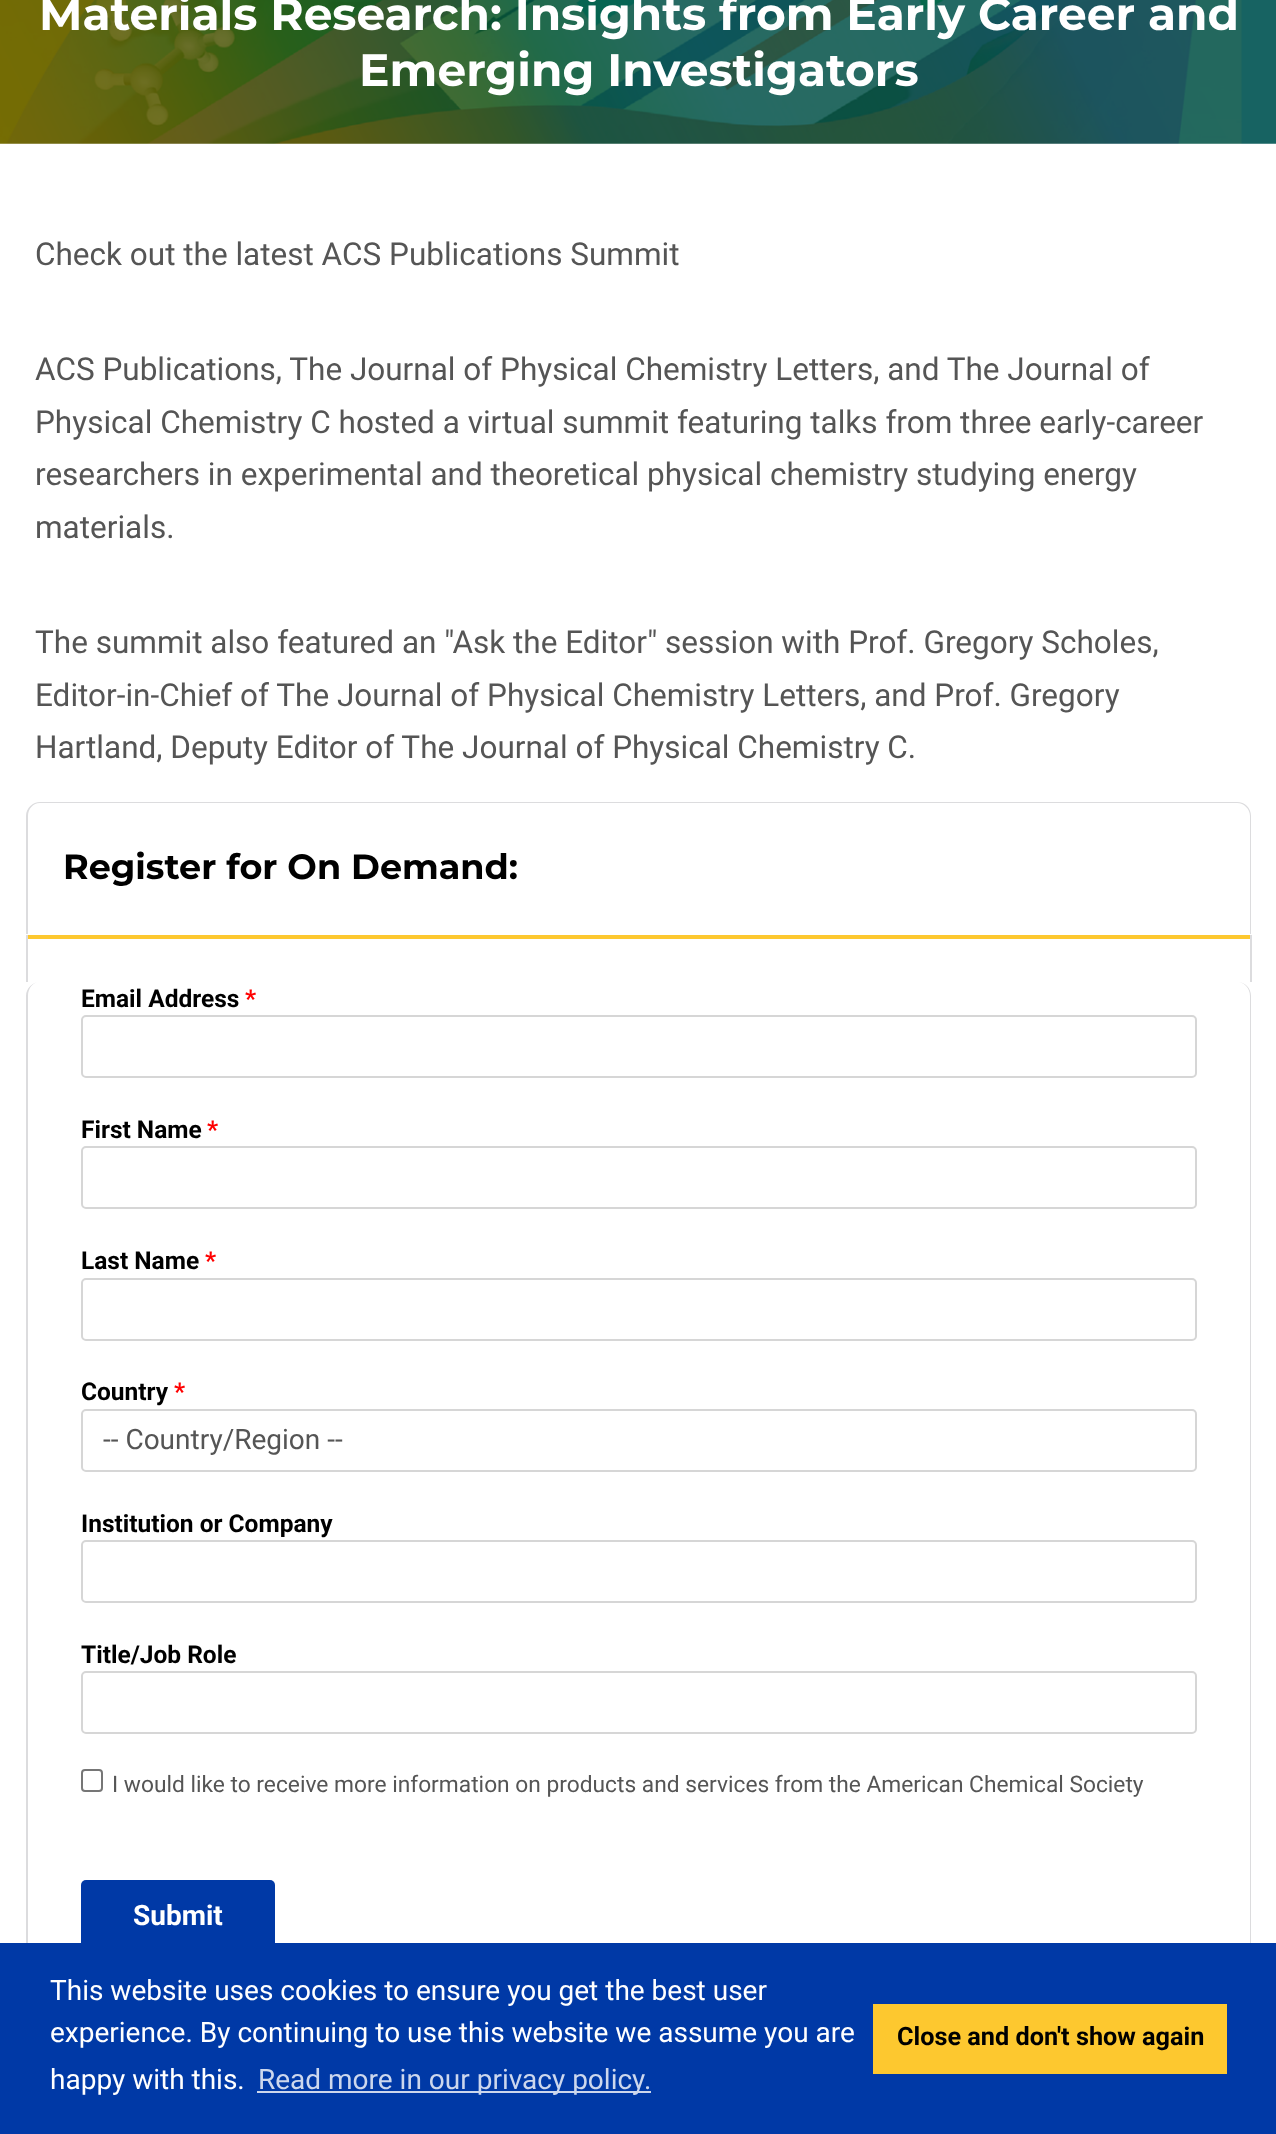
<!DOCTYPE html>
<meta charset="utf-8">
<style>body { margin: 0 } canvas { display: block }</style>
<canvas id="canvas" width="1276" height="2134"></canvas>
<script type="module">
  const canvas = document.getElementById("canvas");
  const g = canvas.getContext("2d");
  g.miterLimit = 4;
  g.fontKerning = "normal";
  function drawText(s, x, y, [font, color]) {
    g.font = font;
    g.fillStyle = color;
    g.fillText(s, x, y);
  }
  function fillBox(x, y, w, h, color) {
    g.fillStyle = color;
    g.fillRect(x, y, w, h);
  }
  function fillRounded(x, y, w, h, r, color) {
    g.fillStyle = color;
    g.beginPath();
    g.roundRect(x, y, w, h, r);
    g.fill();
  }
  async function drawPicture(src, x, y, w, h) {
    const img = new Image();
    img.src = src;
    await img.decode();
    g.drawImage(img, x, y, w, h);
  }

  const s1 = ["bold 45.5px Montserrat", "#FFFFFF"];
  const s2 = ["31.5px Roboto", "#555555"];
  const s3 = ["bold 35px Montserrat", "#000000"];
  const s4 = ["bold 24.5px Roboto", "#000000"];
  const s5 = ["bold 24.5px Roboto", "#FF0000"];
  const s6 = ["28px Roboto", "#555555"];
  const s7 = ["22.75px Roboto", "#555555"];
  const s8 = ["bold 28px Roboto", "#FFFFFF"];
  const s9 = ["28px Roboto", "#FFFFFF"];
  const s10 = ["28px Roboto", "#CCD7ED"];
  const s11 = ["bold 25.25px Roboto", "#000000"];

  fillBox(0, 0, 1276, 2134, "#FFFFFF");
  await drawPicture("pic1.png", 0, 0, 1276, 144);
  drawText("Materials Research: Insights from Early Career and", 39, 30, s1);
  drawText("Emerging Investigators", 359, 86, s1);
  drawText("Check out the latest ACS Publications Summit", 35, 265, s2);
  drawText("ACS Publications, The Journal of Physical Chemistry Letters, and The Journal of", 35, 380, s2);
  drawText("Physical Chemistry C hosted a virtual summit featuring talks from three early-career", 35, 433, s2);
  drawText("researchers in experimental and theoretical physical chemistry studying energy", 35, 485, s2);
  drawText("materials.", 35, 538, s2);
  drawText("The summit also featured an \"Ask the Editor\" session with Prof. Gregory Scholes,", 35, 653, s2);
  drawText("Editor-in-Chief of The Journal of Physical Chemistry Letters, and Prof. Gregory", 35, 706, s2);
  drawText("Hartland, Deputy Editor of The Journal of Physical Chemistry C.", 35, 758, s2);
  g.fillStyle = "#DCDCDE";
  g.beginPath();
  g.moveTo(40, 802);
  g.lineTo(1237, 802);
  g.bezierCurveTo(1245, 802, 1251, 808, 1251, 816);
  g.lineTo(1251, 934);
  g.lineTo(26, 934);
  g.lineTo(26, 816);
  g.bezierCurveTo(26, 808, 33, 802, 40, 802);
  g.closePath();
  g.moveTo(40, 803);
  g.lineTo(1237, 803);
  g.bezierCurveTo(1244, 803, 1250, 809, 1250, 816);
  g.lineTo(1250, 934);
  g.lineTo(28, 934);
  g.lineTo(28, 816);
  g.bezierCurveTo(28, 809, 33, 803, 40, 803);
  g.closePath();
  g.fill("evenodd");
  drawText("Register for On Demand:", 63, 879, s3);
  fillBox(1250, 935, 2, 47, "#DCDCDE");
  fillBox(26, 935, 2, 47, "#DCDCDE");
  fillBox(28, 935, 1222, 4, "#FDC82F");
  g.fillStyle = "#DCDCDE";
  g.beginPath();
  g.moveTo(40, 982);
  g.lineTo(1237, 982);
  g.bezierCurveTo(1245, 982, 1251, 988, 1251, 996);
  g.lineTo(1251, 2002);
  g.bezierCurveTo(1251, 2010, 1245, 2016, 1237, 2016);
  g.lineTo(40, 2016);
  g.bezierCurveTo(33, 2016, 26, 2010, 26, 2002);
  g.lineTo(26, 996);
  g.bezierCurveTo(26, 988, 33, 982, 40, 982);
  g.closePath();
  g.moveTo(40, 982);
  g.lineTo(1237, 982);
  g.bezierCurveTo(1244, 982, 1250, 988, 1250, 996);
  g.lineTo(1250, 2002);
  g.bezierCurveTo(1250, 2009, 1244, 2014, 1237, 2014);
  g.lineTo(40, 2014);
  g.bezierCurveTo(33, 2014, 28, 2009, 28, 2002);
  g.lineTo(28, 996);
  g.bezierCurveTo(28, 988, 33, 982, 40, 982);
  g.closePath();
  g.fill("evenodd");
  drawText("Email Address", 81, 1007, s4);
  drawText("*", 245, 1007, s5);
  g.beginPath();
  g.roundRect(82, 1016, 1114, 61, 4);
  g.strokeStyle = "#D6D6D6";
  g.lineWidth = 2;
  g.stroke();
  drawText("First Name", 81, 1138, s4);
  drawText("*", 207, 1138, s5);
  g.beginPath();
  g.roundRect(82, 1147, 1114, 61, 4);
  g.stroke();
  drawText("Last Name", 81, 1269, s4);
  drawText("*", 205, 1269, s5);
  g.beginPath();
  g.roundRect(82, 1279, 1114, 61, 4);
  g.stroke();
  drawText("Country", 81, 1400, s4);
  drawText("*", 174, 1400, s5);
  g.beginPath();
  g.roundRect(82, 1410, 1114, 61, 4);
  g.stroke();
  drawText("-- Country/Region --", 103, 1449, s6);
  drawText("Institution or Company", 81, 1532, s4);
  g.beginPath();
  g.roundRect(82, 1541, 1114, 61, 4);
  g.stroke();
  drawText("Title/Job Role", 81, 1663, s4);
  g.beginPath();
  g.roundRect(82, 1672, 1114, 61, 4);
  g.stroke();
  g.beginPath();
  g.roundRect(82, 1770, 20, 21, 3);
  g.strokeStyle = "#767676";
  g.stroke();
  drawText("I would like to receive more information on products and services from the American Chemical Society", 112, 1792, s7);
  fillRounded(81, 1880, 194, 73, 5, "#0039A6");
  drawText("Submit", 133, 1925, s8);
  fillBox(0, 1943, 1276, 191, "#0039A6");
  drawText("This website uses cookies to ensure you get the best user", 50, 2000, s9);
  drawText("experience. By continuing to use this website we assume you are", 50, 2042, s9);
  drawText("happy with this.", 50, 2089, s9);
  fillBox(257, 2091, 394, 2, "#CCD7ED");
  drawText("Read more in our privacy policy.", 258, 2089, s10);
  fillBox(873, 2004, 354, 70, "#FDC82F");
  drawText("Close and don't show again", 897, 2045, s11);
</script>
